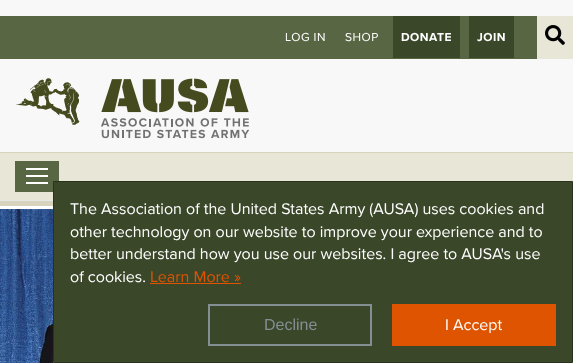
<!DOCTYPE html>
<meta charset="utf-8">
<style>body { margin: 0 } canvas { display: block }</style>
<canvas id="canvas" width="573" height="363"></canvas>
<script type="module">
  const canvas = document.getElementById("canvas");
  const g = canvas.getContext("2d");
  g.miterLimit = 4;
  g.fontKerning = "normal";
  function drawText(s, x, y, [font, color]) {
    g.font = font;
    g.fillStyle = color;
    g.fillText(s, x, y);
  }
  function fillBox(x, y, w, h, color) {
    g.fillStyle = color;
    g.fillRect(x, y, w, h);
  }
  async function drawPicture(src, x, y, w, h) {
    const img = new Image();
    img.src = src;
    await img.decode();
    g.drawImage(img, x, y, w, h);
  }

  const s1 = ["12px Proxima Nova", "#FFFFFF"];
  const s2 = ["bold 12px Proxima Nova", "#FFFFFF"];
  const s3 = ["16px Proxima Nova", "#FFFFFF"];
  const s4 = ["16px Proxima Nova", "#DF5400"];
  const s5 = ["16px Liberation Sans", "#838F93"];

  fillBox(0, 0, 573, 363, "#FFFFFF");
  fillBox(0, 0, 573, 152, "#F8F8F8");
  fillBox(0, 16, 537, 43, "#586644");
  g.letterSpacing = "0.5px";
  drawText("LOG IN", 285, 41, s1);
  drawText("SHOP", 345, 41, s1);
  fillBox(393, 16, 67, 42, "#3A4729");
  drawText("DONATE", 401, 41, s2);
  fillBox(469, 16, 45, 42, "#3A4729");
  drawText("JOIN", 477, 41, s2);
  fillBox(537, 16, 36, 43, "#E8E6D7");
  await drawPicture("pic1.png", 545, 25, 20, 20);
  await drawPicture("pic2.png", 16, 78, 64, 47);
  await drawPicture("pic3.png", 101, 78, 149, 61);
  fillBox(0, 153, 573, 47, "#E8E6D7");
  fillBox(0, 152, 573, 1, "#D7D3BC");
  fillBox(0, 201, 53, 5, "#D7D3BC");
  fillBox(15, 161, 44, 31, "#586644");
  fillBox(26, 168, 22, 2, "#FFFFFF");
  fillBox(26, 175, 22, 2, "#FFFFFF");
  fillBox(26, 182, 22, 2, "#FFFFFF");
  fillBox(0, 200, 53, 1, "#E7E7E7");
  await drawPicture("pic4.png", 0, 209, 53, 154);
  g.fillStyle = "#3A4729";
  g.beginPath();
  g.rect(53.5, 181.5, 519, 181);
  g.fill();
  g.strokeStyle = "#29321D";
  g.stroke();
  g.letterSpacing = "0px";
  drawText("The Association of the United States Army (AUSA) uses cookies and", 70, 214, s3);
  drawText("other technology on our website to improve your experience and to", 70, 237, s3);
  drawText("better understand how you use our websites. I agree to AUSA's use", 70, 259, s3);
  drawText("of cookies.", 70, 282, s3);
  drawText("Learn More »", 150, 282, s4);
  fillBox(150, 283, 91, 1, "#DF5400");
  g.strokeStyle = "#838F93";
  g.lineWidth = 2;
  g.strokeRect(209, 305, 162, 40);
  drawText("Decline", 264, 330, s5);
  fillBox(392, 304, 164, 42, "#DF5400");
  drawText("I Accept", 445, 330, s3);
</script>
